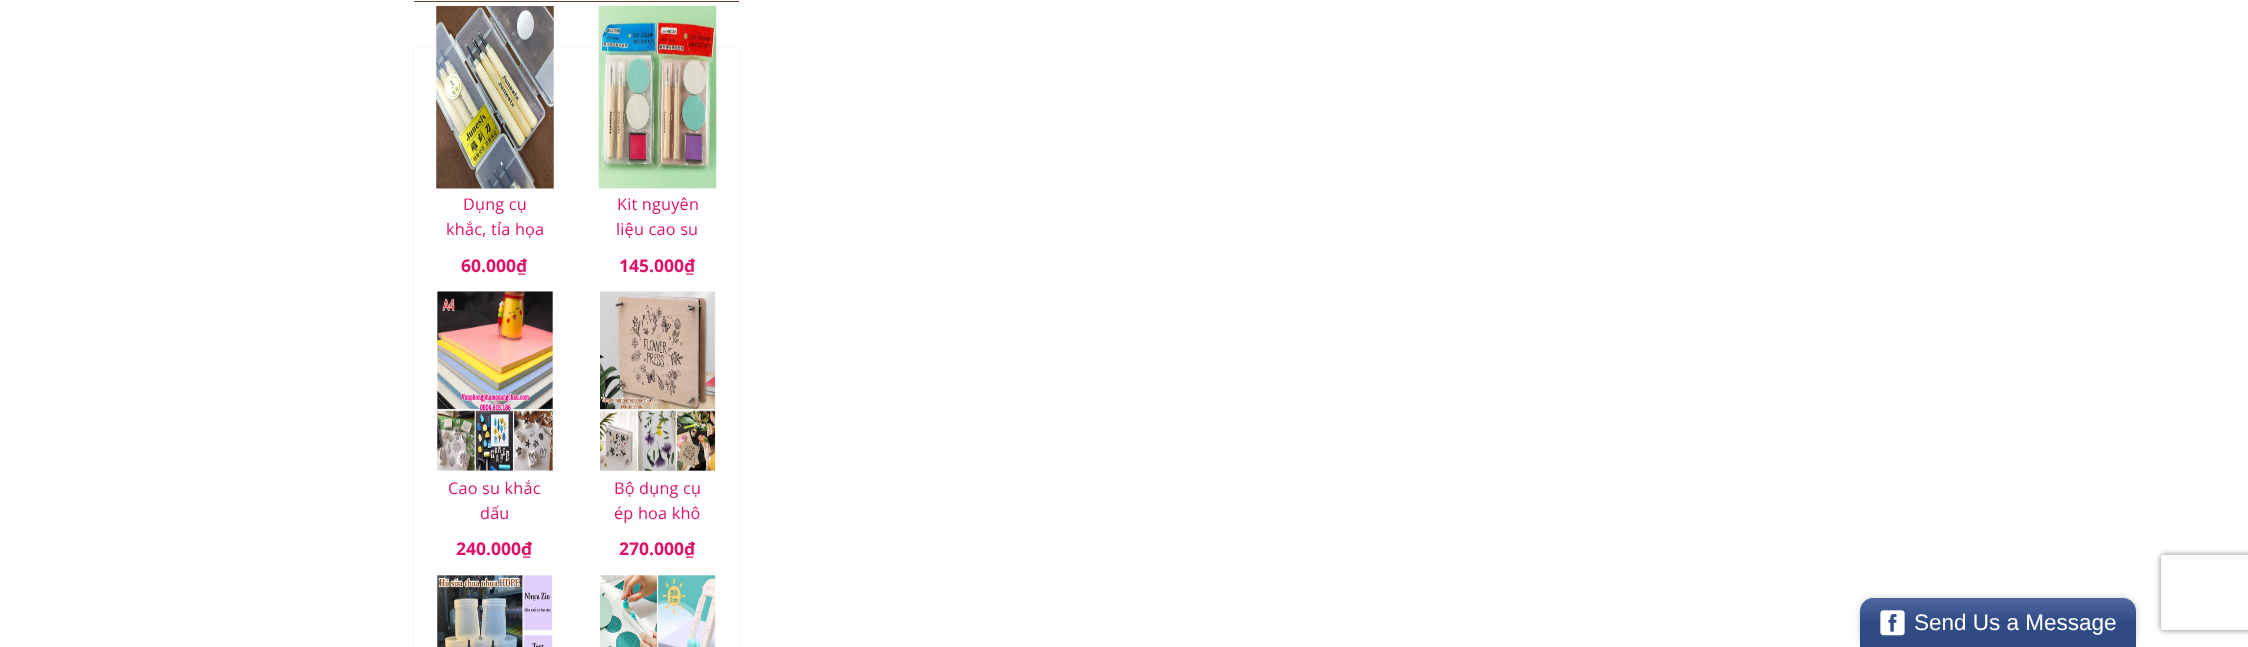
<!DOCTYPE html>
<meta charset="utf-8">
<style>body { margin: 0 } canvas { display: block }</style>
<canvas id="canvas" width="2248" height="647"></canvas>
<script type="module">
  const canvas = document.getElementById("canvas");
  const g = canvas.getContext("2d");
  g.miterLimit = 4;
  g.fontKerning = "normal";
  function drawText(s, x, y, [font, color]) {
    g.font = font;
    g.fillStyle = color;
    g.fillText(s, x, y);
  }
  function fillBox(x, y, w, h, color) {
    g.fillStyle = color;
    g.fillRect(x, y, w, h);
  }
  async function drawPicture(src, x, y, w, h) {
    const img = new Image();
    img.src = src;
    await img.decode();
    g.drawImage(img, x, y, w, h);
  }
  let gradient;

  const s1 = ["16.25px Open Sans", "#E01169"];
  const s2 = ["bold 17.5px Open Sans", "#E01169"];
  const s3 = ["22.5px Liberation Sans", "#FFFFFF"];

  fillBox(0, 0, 2248, 647, "#FFFFFF");
  fillBox(413, 46, 327, 1, "#F4F8F9");
  fillBox(739, 46, 1, 601, "#F4F8F9");
  fillBox(413, 46, 1, 601, "#F4F8F9");
  fillBox(739, 0, 1, 3, "#F4F8F9");
  fillBox(413, 0, 1, 3, "#F4F8F9");
  fillBox(414, 1, 325, 1, "#6E3E25");
  fillBox(434, 46, 122, 1, "#FFFFFF");
  await drawPicture("pic1.png", 436, 6, 118, 183);
  g.letterSpacing = "0.2px";
  drawText("Dụng cụ", 463, 210, s1);
  drawText("khắc, tỉa họa", 446, 235, s1);
  g.letterSpacing = "0px";
  drawText("60.000₫", 461, 272, s2);
  fillBox(596, 46, 123, 1, "#FFFFFF");
  await drawPicture("pic2.png", 598, 6, 119, 183);
  g.letterSpacing = "0.2px";
  drawText("Kit nguyên", 617, 210, s1);
  drawText("liệu cao su", 616, 235, s1);
  g.letterSpacing = "0px";
  drawText("145.000₫", 619, 272, s2);
  await drawPicture("pic3.png", 437, 291, 116, 180);
  g.letterSpacing = "0.2px";
  drawText("Cao su khắc", 448, 494, s1);
  drawText("dấu", 480, 519, s1);
  g.letterSpacing = "0px";
  drawText("240.000₫", 456, 555, s2);
  await drawPicture("pic4.png", 600, 291, 116, 181);
  g.letterSpacing = "0.2px";
  drawText("Bộ dụng cụ", 614, 494, s1);
  drawText("ép hoa khô", 614, 519, s1);
  g.letterSpacing = "0px";
  drawText("270.000₫", 619, 555, s2);
  await drawPicture("pic5.png", 437, 575, 116, 72);
  await drawPicture("pic6.png", 600, 575, 116, 72);
  g.fillStyle = "rgba(0, 0, 0, 0.2)";
  g.filter = "blur(3px)";
  g.beginPath();
  g.roundRect(1860, 598, 276, 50, 13);
  g.fill();
  g.filter = "none";
  gradient = g.createLinearGradient(1998, 598, 1998, 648);
  gradient.addColorStop(0, "#4E69A2");
  gradient.addColorStop(0.5, "#304B84");
  g.fillStyle = gradient;
  g.beginPath();
  g.moveTo(1873, 598);
  g.lineTo(2123, 598);
  g.bezierCurveTo(2130, 598, 2136, 604, 2136, 611);
  g.lineTo(2136, 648);
  g.lineTo(1860, 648);
  g.lineTo(1860, 611);
  g.bezierCurveTo(1860, 604, 1866, 598, 1873, 598);
  g.closePath();
  g.fill();
  await drawPicture("pic7.png", 1880, 610, 25, 26);
  drawText("Send Us a Message", 1914, 630, s3);
  g.save();
  g.beginPath();
  g.moveTo(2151, 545);
  g.lineTo(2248, 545);
  g.lineTo(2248, 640);
  g.lineTo(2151, 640);
  g.closePath();
  g.moveTo(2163.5, 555);
  g.lineTo(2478.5, 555);
  g.bezierCurveTo(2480, 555, 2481, 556, 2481, 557.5);
  g.lineTo(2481, 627.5);
  g.bezierCurveTo(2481, 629, 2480, 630, 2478.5, 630);
  g.lineTo(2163.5, 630);
  g.bezierCurveTo(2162, 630, 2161, 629, 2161, 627.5);
  g.lineTo(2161, 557.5);
  g.bezierCurveTo(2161, 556, 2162, 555, 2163.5, 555);
  g.closePath();
  g.clip("evenodd");
  g.fillStyle = "#808080";
  g.filter = "blur(3px)";
  g.beginPath();
  g.roundRect(2161, 555, 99, 75, 2.5);
  g.fill();
  g.filter = "none";
  g.restore();
</script>
